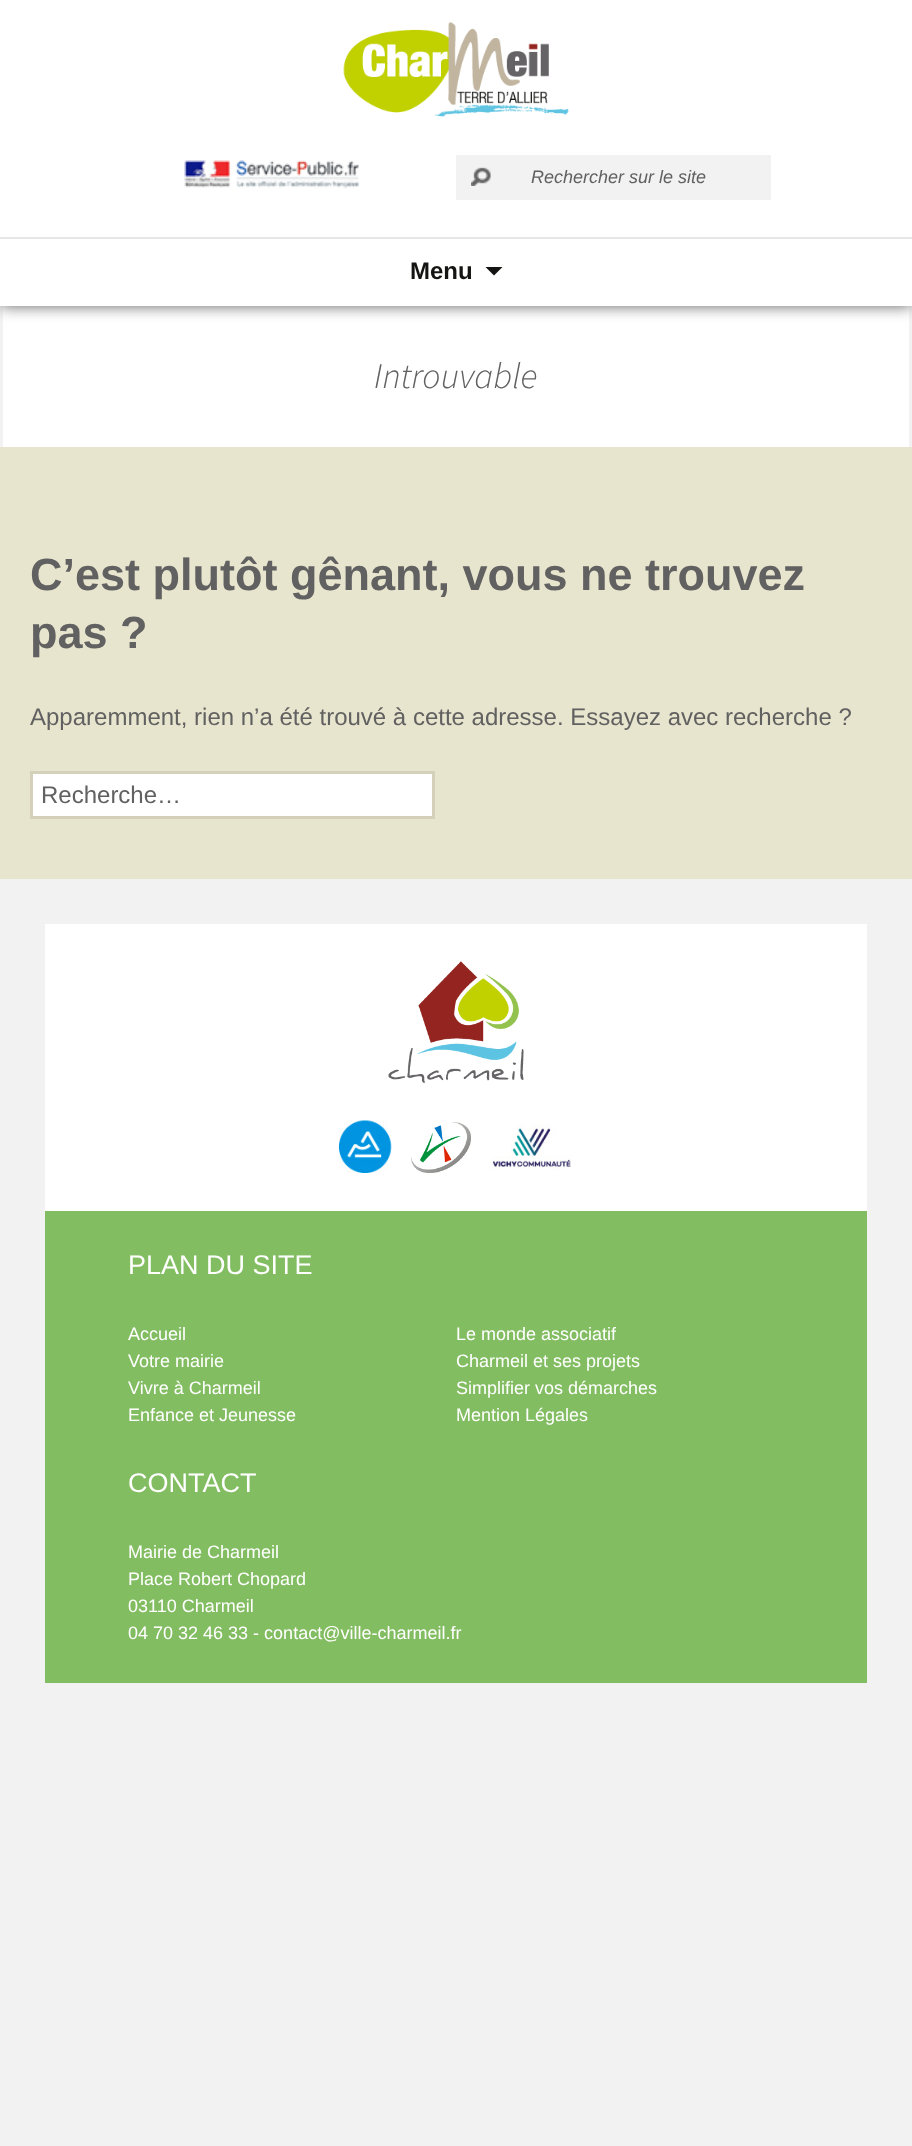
<!DOCTYPE html>
<meta charset="utf-8">
<style>body { margin: 0 } canvas { display: block }</style>
<canvas id="canvas" width="912" height="2146"></canvas>
<script type="module">
  const canvas = document.getElementById("canvas");
  const g = canvas.getContext("2d");
  g.miterLimit = 4;
  g.fontKerning = "normal";
  function drawText(s, x, y, [font, color]) {
    g.font = font;
    g.fillStyle = color;
    g.fillText(s, x, y);
  }
  function fillBox(x, y, w, h, color) {
    g.fillStyle = color;
    g.fillRect(x, y, w, h);
  }
  async function drawPicture(src, x, y, w, h) {
    const img = new Image();
    img.src = src;
    await img.decode();
    g.drawImage(img, x, y, w, h);
  }

  const s1 = ["italic 18px Liberation Sans", "#626161"];
  const s2 = ["bold 24px Liberation Sans", "#141412"];
  const s3 = ["italic 300 36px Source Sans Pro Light", "#626161"];
  const s4 = ["bold 45px Liberation Sans", "#626161"];
  const s5 = ["24px Liberation Sans", "#626161"];
  const s6 = ["27px Liberation Sans", "#FFFFFF"];
  const s7 = ["18px Liberation Sans", "#FFFFFF"];

  fillBox(0, 0, 912, 2146, "#F2F2F2");
  fillBox(3, 306, 906, 141, "#FFFFFF");
  g.fillStyle = "#626161";
  g.filter = "blur(7.5px)";
  g.beginPath();
  g.rect(0, 237, 912, 69);
  g.fill();
  g.filter = "none";
  fillBox(0, 0, 912, 237, "#FFFFFF");
  await drawPicture("pic1.png", 343, 22, 226, 95);
  await drawPicture("pic2.png", 184, 160, 175, 29);
  fillBox(456, 155, 315, 45, "#F2F2F2");
  await drawPicture("pic3.png", 471, 167, 20, 19);
  drawText("Rechercher sur le site", 531, 183, s1);
  fillBox(0, 239, 912, 67, "#FFFFFF");
  fillBox(0, 237, 912, 2, "#E6E6E6");
  drawText("Menu", 410, 279, s2);
  g.beginPath();
  g.moveTo(485.5, 267);
  g.lineTo(494, 275.5);
  g.lineTo(502.5, 267);
  g.closePath();
  g.fill();
  drawText("Introuvable", 374, 388, s3);
  fillBox(0, 447, 912, 432, "#E8E5CE");
  drawText("C’est plutôt gênant, vous ne trouvez", 30, 590, s4);
  drawText("pas ?", 30, 648, s4);
  drawText("Apparemment, rien n’a été trouvé à cette adresse. Essayez avec recherche ?", 30, 725, s5);
  g.fillStyle = "#FFFFFF";
  g.beginPath();
  g.rect(31.5, 772.5, 402, 45);
  g.fill();
  g.strokeStyle = "#D4D0BA";
  g.lineWidth = 3;
  g.stroke();
  drawText("Recherche…", 41, 803, s5);
  fillBox(45, 1211, 822, 472, "#83BD62");
  fillBox(45, 924, 822, 287, "#FFFFFF");
  await drawPicture("pic4.png", 388, 961, 136, 122);
  await drawPicture("pic5.png", 339, 1120, 53, 53);
  await drawPicture("pic6.png", 411, 1122, 60, 51);
  await drawPicture("pic7.png", 491, 1124, 80, 46);
  drawText("PLAN DU SITE", 128, 1274, s6);
  drawText("Accueil", 128, 1340, s7);
  drawText("Votre mairie", 128, 1367, s7);
  drawText("Vivre à Charmeil", 128, 1394, s7);
  drawText("Enfance et Jeunesse", 128, 1421, s7);
  drawText("Le monde associatif", 456, 1340, s7);
  drawText("Charmeil et ses projets", 456, 1367, s7);
  drawText("Simplifier vos démarches", 456, 1394, s7);
  drawText("Mention Légales", 456, 1421, s7);
  drawText("CONTACT", 128, 1492, s6);
  drawText("Mairie de Charmeil", 128, 1558, s7);
  drawText("Place Robert Chopard", 128, 1585, s7);
  drawText("03110 Charmeil", 128, 1612, s7);
  drawText("04 70 32 46 33 - contact@ville-charmeil.fr", 128, 1639, s7);
</script>
